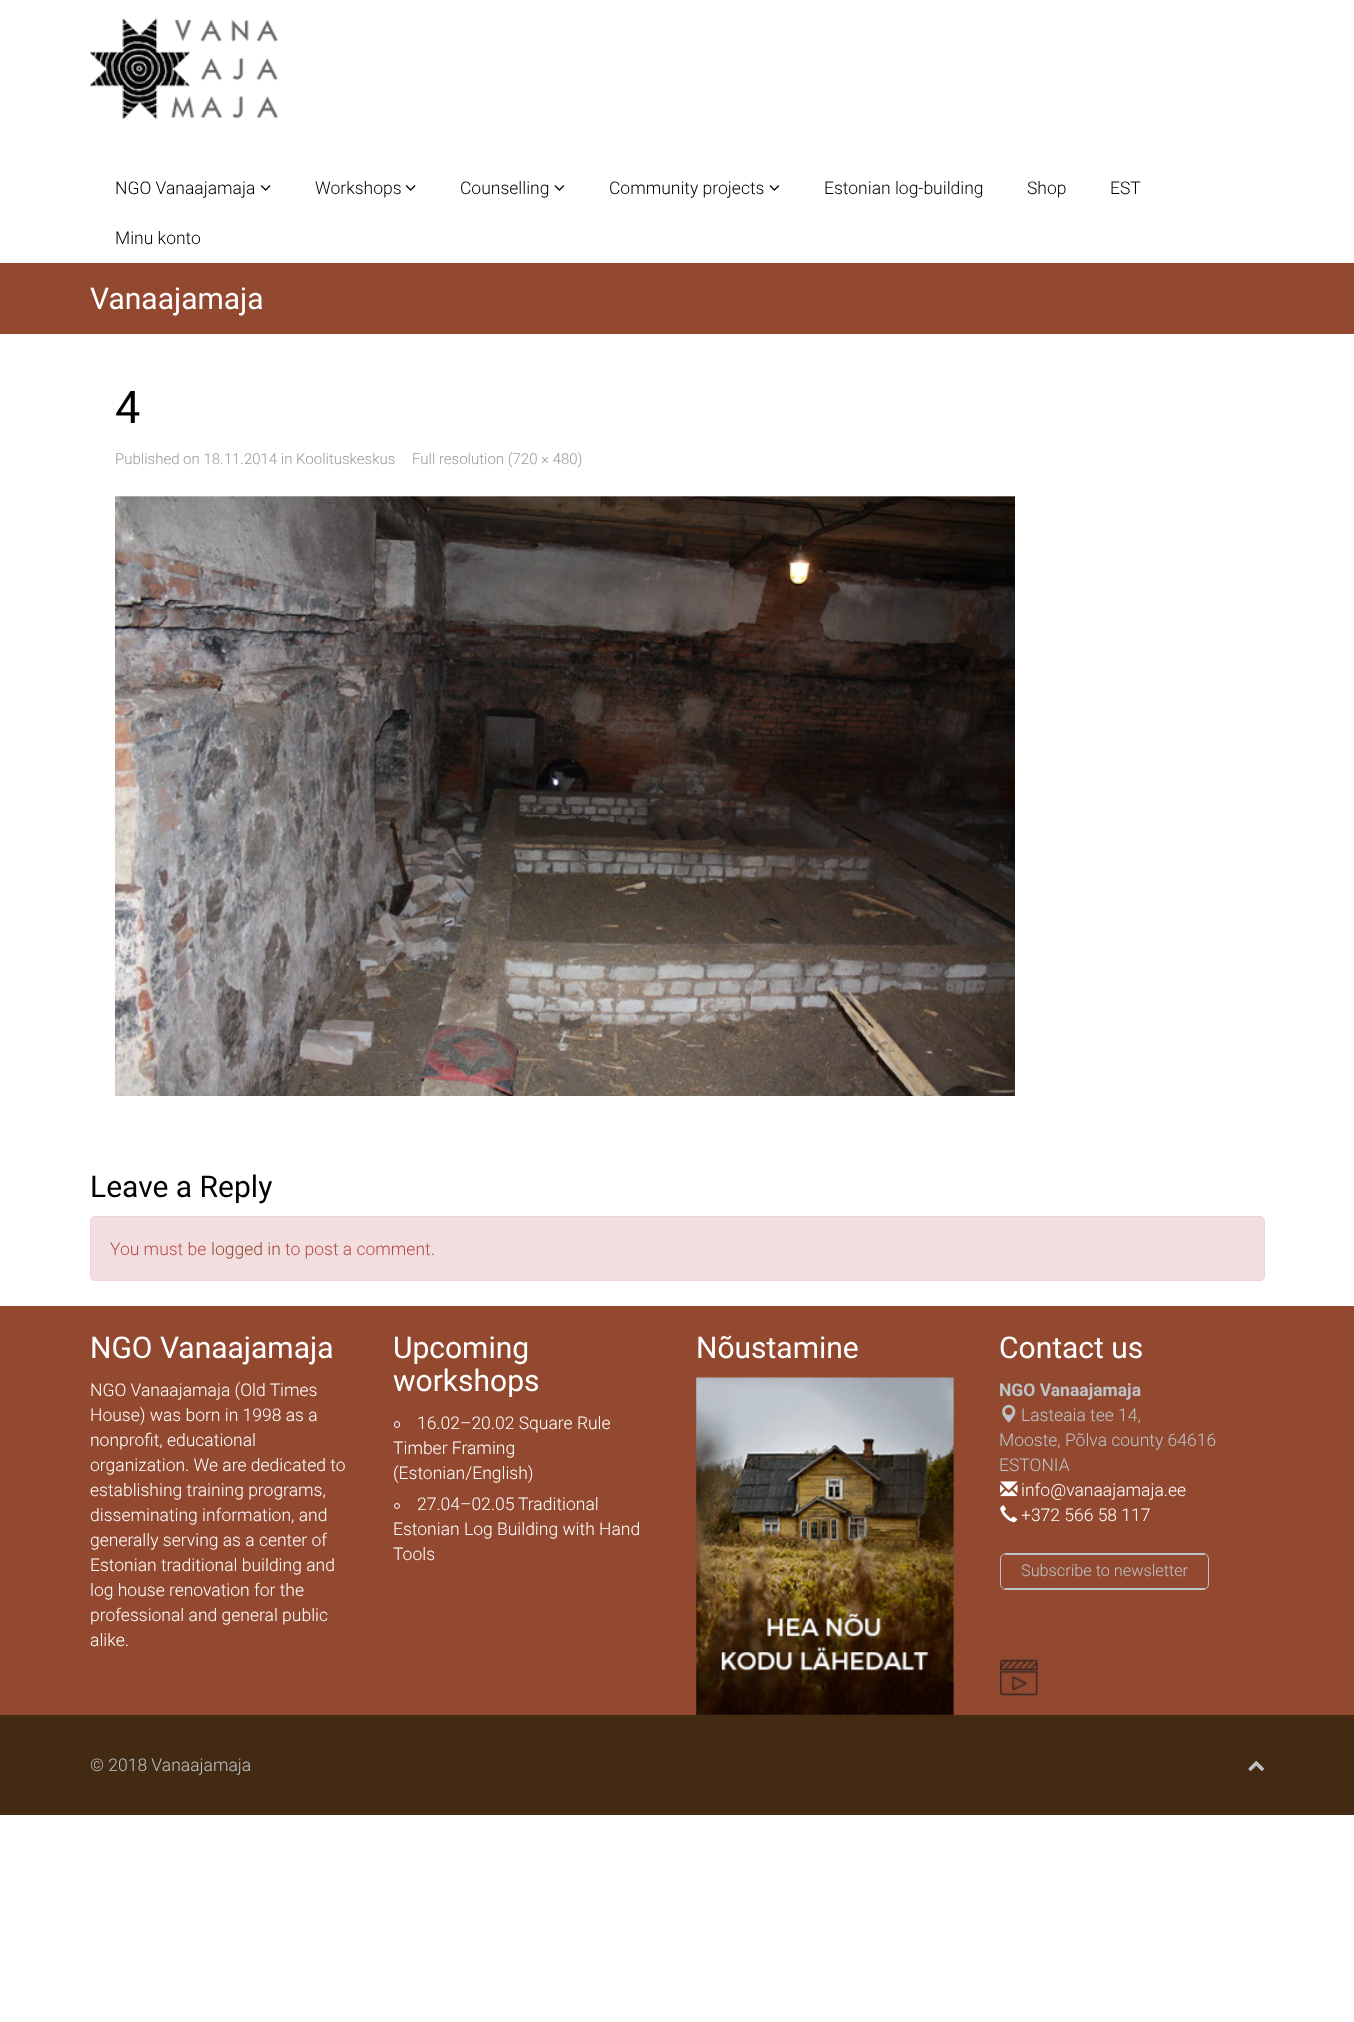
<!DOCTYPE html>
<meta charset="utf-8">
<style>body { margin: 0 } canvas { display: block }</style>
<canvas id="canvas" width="1354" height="2022"></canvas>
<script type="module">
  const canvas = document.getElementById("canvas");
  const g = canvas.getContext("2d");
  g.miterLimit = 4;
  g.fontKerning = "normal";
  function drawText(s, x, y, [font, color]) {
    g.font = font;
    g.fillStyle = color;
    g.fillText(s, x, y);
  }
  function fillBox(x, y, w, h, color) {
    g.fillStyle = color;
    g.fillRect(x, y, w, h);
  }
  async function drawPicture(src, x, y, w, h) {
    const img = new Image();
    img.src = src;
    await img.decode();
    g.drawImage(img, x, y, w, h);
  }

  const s1 = ["300 17.5px Roboto", "#000000"];
  const s2 = ["30px Roboto", "#FFFFFF"];
  const s3 = ["45px Roboto", "#000000"];
  const s4 = ["300 15px Roboto", "#999999"];
  const s5 = ["30px Roboto", "#000000"];
  const s6 = ["300 17.5px Roboto", "#B94A48"];
  const s7 = ["300 17.5px Roboto", "#934930"];
  const s8 = ["300 17.5px Roboto", "#FFFFFF"];
  const s9 = ["bold 17.5px Roboto", "#BDC3C7"];
  const s10 = ["300 17.5px Roboto", "#BDC3C7"];
  const s11 = ["300 16.25px Roboto", "#BDC3C7"];

  fillBox(0, 0, 1354, 2022, "#FFFFFF");
  await drawPicture("pic1.png", 90, 18, 188, 101);
  drawText("NGO Vanaajamaja", 115, 194, s1);
  await drawPicture("pic2.png", 260, 185, 11, 6);
  drawText("Workshops", 315, 194, s1);
  await drawPicture("pic2.png", 405, 185, 11, 6);
  drawText("Counselling", 460, 194, s1);
  await drawPicture("pic3.png", 554, 185, 11, 6);
  drawText("Community projects", 609, 194, s1);
  await drawPicture("pic3.png", 769, 185, 11, 6);
  drawText("Estonian log-building", 824, 194, s1);
  drawText("Shop", 1027, 194, s1);
  drawText("EST", 1110, 194, s1);
  drawText("Minu konto", 115, 244, s1);
  fillBox(0, 263, 1354, 71, "#934930");
  drawText("Vanaajamaja", 90, 309, s2);
  drawText("4", 115, 423, s3);
  drawText("Published on 18.11.2014 in Koolituskeskus", 115, 464, s4);
  drawText("Full resolution (720 × 480)", 412, 464, s4);
  await drawPicture("pic4.png", 115, 496, 900, 600);
  drawText("Leave a Reply", 90, 1197, s5);
  g.fillStyle = "#F2DEDE";
  g.beginPath();
  g.roundRect(90.5, 1216.5, 1174, 64, 4.5);
  g.fill();
  g.strokeStyle = "#EED3D7";
  g.stroke();
  drawText("You must be", 110, 1255, s6);
  drawText("logged in", 211, 1255, s7);
  drawText("to post a comment.", 285, 1255, s6);
  fillBox(0, 1306, 1354, 409, "#934930");
  drawText("NGO Vanaajamaja", 90, 1358, s2);
  drawText("NGO Vanaajamaja (Old Times", 90, 1396, s8);
  drawText("House) was born in 1998 as a", 90, 1421, s8);
  drawText("nonprofit, educational", 90, 1446, s8);
  drawText("organization. We are dedicated to", 90, 1471, s8);
  drawText("establishing training programs,", 90, 1496, s8);
  drawText("disseminating information, and", 90, 1521, s8);
  drawText("generally serving as a center of", 90, 1546, s8);
  drawText("Estonian traditional building and", 90, 1571, s8);
  drawText("log house renovation for the", 90, 1596, s8);
  drawText("professional and general public", 90, 1621, s8);
  drawText("alike.", 90, 1646, s8);
  drawText("Upcoming", 393, 1358, s2);
  drawText("workshops", 393, 1391, s2);
  g.beginPath();
  g.roundRect(394.5, 1421.5, 5, 6, 2.5);
  g.strokeStyle = "#FFFFFF";
  g.stroke();
  drawText("16.02–20.02 Square Rule", 417, 1429, s8);
  drawText("Timber Framing", 393, 1454, s8);
  drawText("(Estonian/English)", 393, 1479, s8);
  g.beginPath();
  g.arc(397, 1506, 2.5, 0, Math.PI * 2);
  g.stroke();
  drawText("27.04–02.05", 417, 1510, s8);
  drawText("Traditional", 518, 1510, s8);
  drawText("Estonian Log Building with Hand", 393, 1535, s8);
  drawText("Tools", 393, 1560, s8);
  drawText("Nõustamine", 696, 1358, s2);
  await drawPicture("pic5.png", 696, 1377, 258, 338);
  drawText("Contact us", 999, 1358, s2);
  drawText("NGO Vanaajamaja", 999, 1396, s9);
  await drawPicture("pic6.png", 1002, 1404, 14, 19);
  drawText("Lasteaia tee 14,", 1021, 1421, s10);
  drawText("Mooste, Põlva county 64616", 999, 1446, s10);
  drawText("ESTONIA", 999, 1471, s10);
  await drawPicture("pic7.png", 1000, 1481, 18, 16);
  drawText("info@vanaajamaja.ee", 1021, 1496, s8);
  await drawPicture("pic8.png", 1000, 1505, 18, 18);
  drawText("+372 566 58 117", 1021, 1521, s8);
  g.beginPath();
  g.roundRect(1000.5, 1553.5, 208, 36, 5.5);
  g.strokeStyle = "#BDC3C7";
  g.stroke();
  fillBox(1005, 1554, 200, 1, "#BDC3C7");
  fillBox(1005, 1588, 200, 1, "#BDC3C7");
  drawText("Subscribe to newsletter", 1021, 1576, s11);
  await drawPicture("pic9.png", 999, 1658, 39, 39);
  fillBox(0, 1715, 1354, 100, "#432A13");
  drawText("© 2018 Vanaajamaja", 90, 1771, s10);
  await drawPicture("pic10.png", 1248, 1761, 17, 10);
</script>
